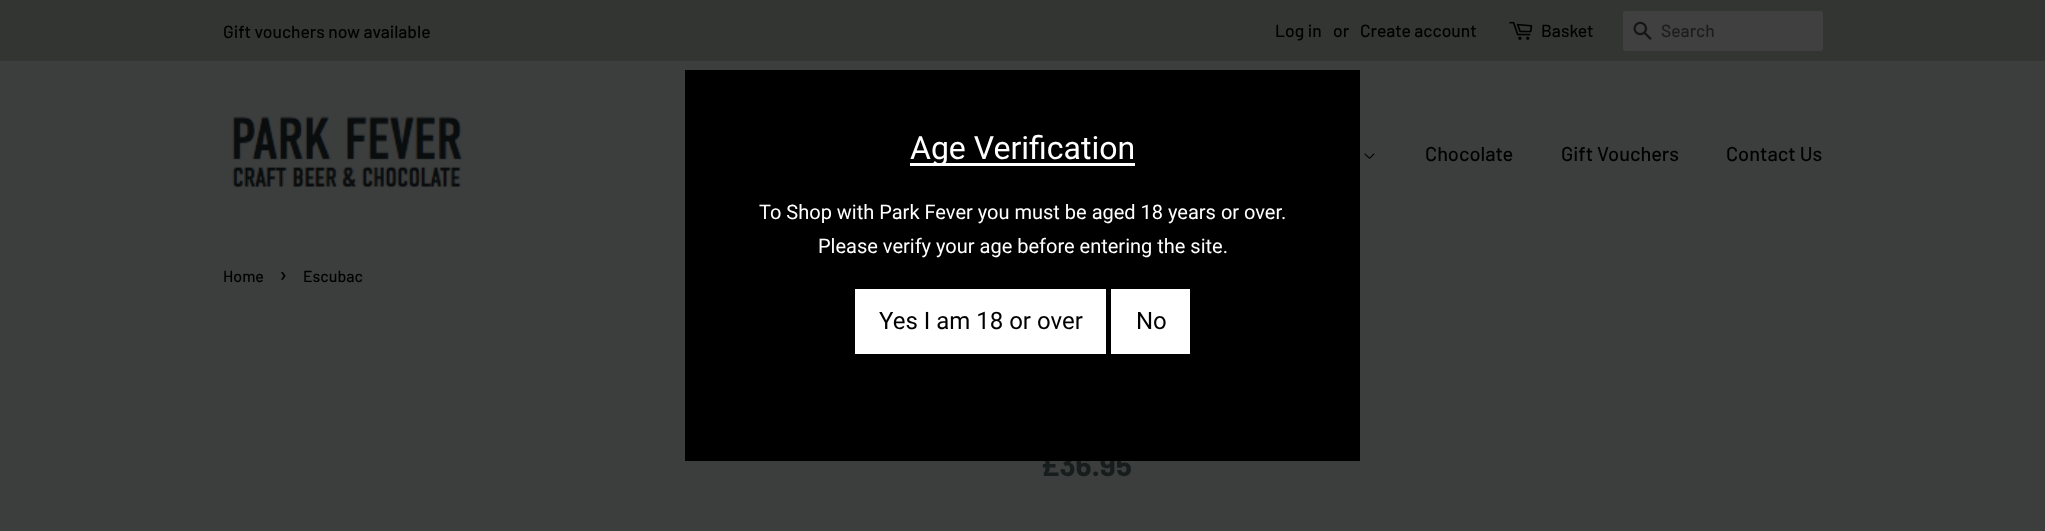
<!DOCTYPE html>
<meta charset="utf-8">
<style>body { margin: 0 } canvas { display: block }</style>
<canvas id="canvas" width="2045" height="531"></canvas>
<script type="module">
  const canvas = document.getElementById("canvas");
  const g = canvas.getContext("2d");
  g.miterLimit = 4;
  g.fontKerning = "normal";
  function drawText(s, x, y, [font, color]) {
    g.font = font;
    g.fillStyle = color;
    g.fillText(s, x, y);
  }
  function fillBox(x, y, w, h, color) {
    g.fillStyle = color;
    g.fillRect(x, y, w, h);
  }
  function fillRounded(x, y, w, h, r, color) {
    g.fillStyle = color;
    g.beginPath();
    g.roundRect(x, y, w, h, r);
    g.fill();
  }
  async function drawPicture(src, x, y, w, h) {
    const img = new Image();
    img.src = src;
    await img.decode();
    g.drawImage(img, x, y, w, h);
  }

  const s1 = ["500 17.5px Barlow", "#000000"];
  const s2 = ["500 17.5px Barlow", "#1D1D1D"];
  const s3 = ["500 20px Barlow", "#000000"];
  const s4 = ["bold 30px Barlow", "#161D1C"];
  const s5 = ["32px Roboto", "#FFFFFF"];
  const s6 = ["20px Roboto", "#FFFFFF"];
  const s7 = ["24px Roboto", "#000000"];
  const s8 = ["500 16px Barlow", "#000000"];
  const s9 = ["500 22px Barlow", "#000000"];

  fillBox(0, 0, 2045, 531, "#3C3D3D");
  fillBox(0, 0, 2045, 61, "#333533");
  drawText("Gift vouchers now available", 223, 38, s1);
  drawText("Log in", 1275, 37, s1);
  drawText("or", 1333, 37, s1);
  drawText("Create account", 1360, 37, s1);
  await drawPicture("pic1.png", 1509, 21, 24, 19);
  drawText("Basket", 1541, 37, s1);
  fillRounded(1623, 11, 200, 40, 2.5, "#404040");
  await drawPicture("pic2.png", 1633, 21, 19, 19);
  drawText("Search", 1661, 37, s2);
  await drawPicture("pic3.png", 232, 116, 231, 72);
  await drawPicture("pic4.png", 1364, 153, 11, 6);
  drawText("Chocolate", 1425, 161, s3);
  drawText("Gift Vouchers", 1561, 161, s3);
  drawText("Contact Us", 1726, 161, s3);
  drawText("£36.95", 1041, 476, s4);
  fillBox(685, 70, 675, 391, "#000000");
  fillBox(910, 163, 225, 3, "#FFFFFF");
  drawText("Age Verification", 910, 159, s5);
  drawText("To Shop with Park Fever you must be aged 18 years or over.", 759, 219, s6);
  drawText("Please verify your age before entering the site.", 818, 253, s6);
  fillBox(855, 289, 251, 65, "#FFFFFF");
  drawText("Yes I am 18 or over", 879, 329, s7);
  fillBox(1111, 289, 79, 65, "#FFFFFF");
  drawText("No", 1136, 329, s7);
  drawText("Home", 223, 282, s8);
  drawText("›", 279, 282, s9);
  drawText("Escubac", 303, 282, s8);
</script>
